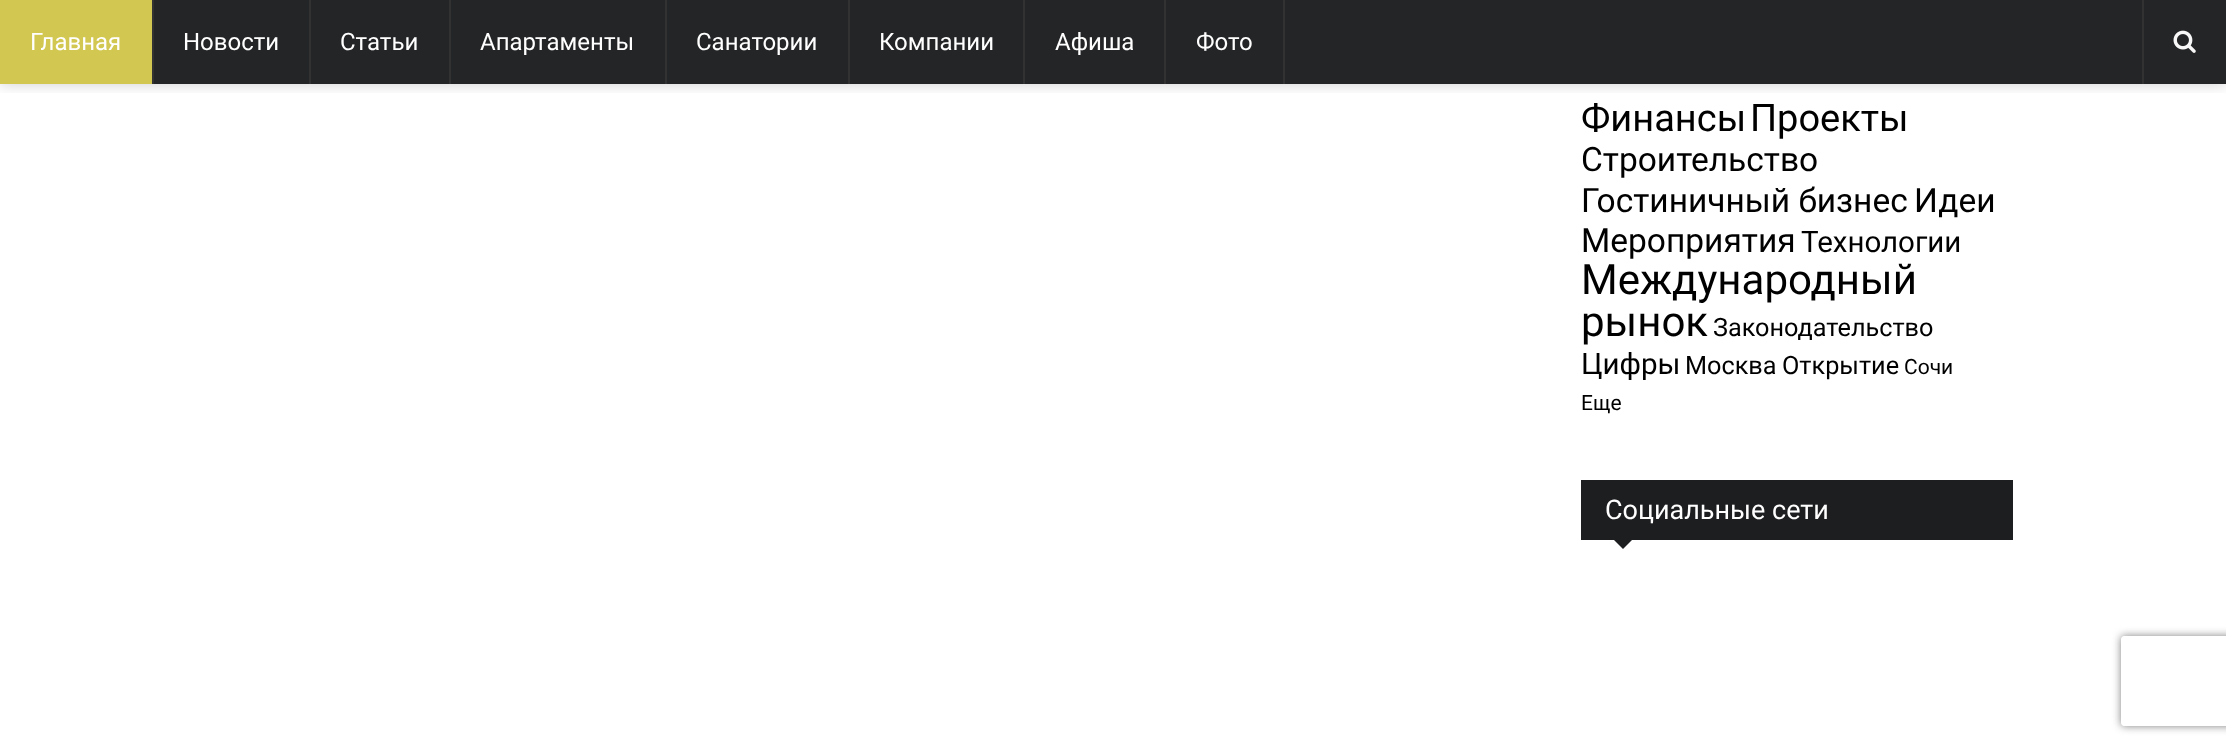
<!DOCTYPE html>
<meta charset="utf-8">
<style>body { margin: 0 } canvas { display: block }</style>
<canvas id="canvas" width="2226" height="747"></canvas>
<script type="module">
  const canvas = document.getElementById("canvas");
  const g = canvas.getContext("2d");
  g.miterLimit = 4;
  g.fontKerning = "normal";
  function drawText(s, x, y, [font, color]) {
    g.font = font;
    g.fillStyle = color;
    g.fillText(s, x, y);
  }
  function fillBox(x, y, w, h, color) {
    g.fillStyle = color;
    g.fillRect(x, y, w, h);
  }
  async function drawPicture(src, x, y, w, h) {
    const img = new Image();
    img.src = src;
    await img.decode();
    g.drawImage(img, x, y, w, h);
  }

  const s1 = ["24px Roboto", "#FFFFFF"];
  const s2 = ["38px Roboto", "#000000"];
  const s3 = ["33.5px Roboto", "#000000"];
  const s4 = ["29.5px Roboto", "#000000"];
  const s5 = ["42px Roboto", "#000000"];
  const s6 = ["25.25px Roboto", "#000000"];
  const s7 = ["21px Roboto", "#000000"];
  const s8 = ["27px Roboto", "#FFFFFF"];

  fillBox(0, 0, 2226, 747, "#FFFFFF");
  g.save();
  g.beginPath();
  g.rect(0, 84, 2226, 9);
  g.clip();
  g.fillStyle = "rgba(0, 0, 0, 0.19)";
  g.filter = "blur(7.5px)";
  g.beginPath();
  g.rect(0, 0, 2226, 84);
  g.fill();
  g.filter = "none";
  g.restore();
  fillBox(154, 0, 2072, 84, "rgba(29, 30, 32, 0.97)");
  fillBox(152, 0, 2, 84, "#323232");
  fillBox(0, 0, 152, 84, "#D2C750");
  drawText("Главная", 30, 50, s1);
  fillBox(309, 0, 2, 84, "#323232");
  drawText("Новости", 183, 50, s1);
  fillBox(449, 0, 2, 84, "#323232");
  drawText("Статьи", 340, 50, s1);
  fillBox(665, 0, 2, 84, "#323232");
  drawText("Апартаменты", 480, 50, s1);
  fillBox(848, 0, 2, 84, "#323232");
  drawText("Санатории", 696, 50, s1);
  fillBox(1023, 0, 2, 84, "#323232");
  drawText("Компании", 879, 50, s1);
  fillBox(1164, 0, 2, 84, "#323232");
  drawText("Афиша", 1055, 50, s1);
  fillBox(1283, 0, 2, 84, "#323232");
  drawText("Фото", 1196, 50, s1);
  fillBox(2142, 0, 2, 84, "#323232");
  await drawPicture("pic1.png", 2173, 30, 23, 23);
  drawText("Финансы", 1581, 131, s2);
  drawText("Проекты", 1750, 131, s2);
  drawText("Строительство", 1581, 171, s3);
  drawText("Гостиничный бизнес", 1581, 212, s3);
  drawText("Идеи", 1914, 212, s3);
  drawText("Мероприятия", 1581, 252, s3);
  drawText("Технологии", 1801, 252, s4);
  drawText("Международный", 1581, 294, s5);
  drawText("рынок", 1581, 336, s5);
  drawText("Законодательство", 1713, 336, s6);
  drawText("Цифры", 1581, 374, s4);
  drawText("Москва", 1685, 374, s6);
  drawText("Открытие", 1782, 374, s6);
  drawText("Сочи", 1904, 374, s7);
  drawText("Еще", 1581, 410, s7);
  fillBox(1581, 480, 432, 60, "#1D1E20");
  drawText("Социальные сети", 1605, 519, s8);
  g.fillStyle = "#1D1E20";
  g.beginPath();
  g.moveTo(1614, 540);
  g.lineTo(1632, 540);
  g.lineTo(1623, 549);
  g.closePath();
  g.fill();
  g.save();
  g.beginPath();
  g.moveTo(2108, 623);
  g.lineTo(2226, 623);
  g.lineTo(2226, 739);
  g.lineTo(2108, 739);
  g.closePath();
  g.moveTo(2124, 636);
  g.lineTo(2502, 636);
  g.bezierCurveTo(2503.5, 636, 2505, 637.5, 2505, 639);
  g.lineTo(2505, 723);
  g.bezierCurveTo(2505, 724.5, 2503.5, 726, 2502, 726);
  g.lineTo(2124, 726);
  g.bezierCurveTo(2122.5, 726, 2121, 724.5, 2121, 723);
  g.lineTo(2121, 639);
  g.bezierCurveTo(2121, 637.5, 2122.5, 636, 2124, 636);
  g.closePath();
  g.clip("evenodd");
  g.fillStyle = "#808080";
  g.filter = "blur(4px)";
  g.beginPath();
  g.roundRect(2121, 636, 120, 90, 3);
  g.fill();
  g.filter = "none";
  g.restore();
</script>
